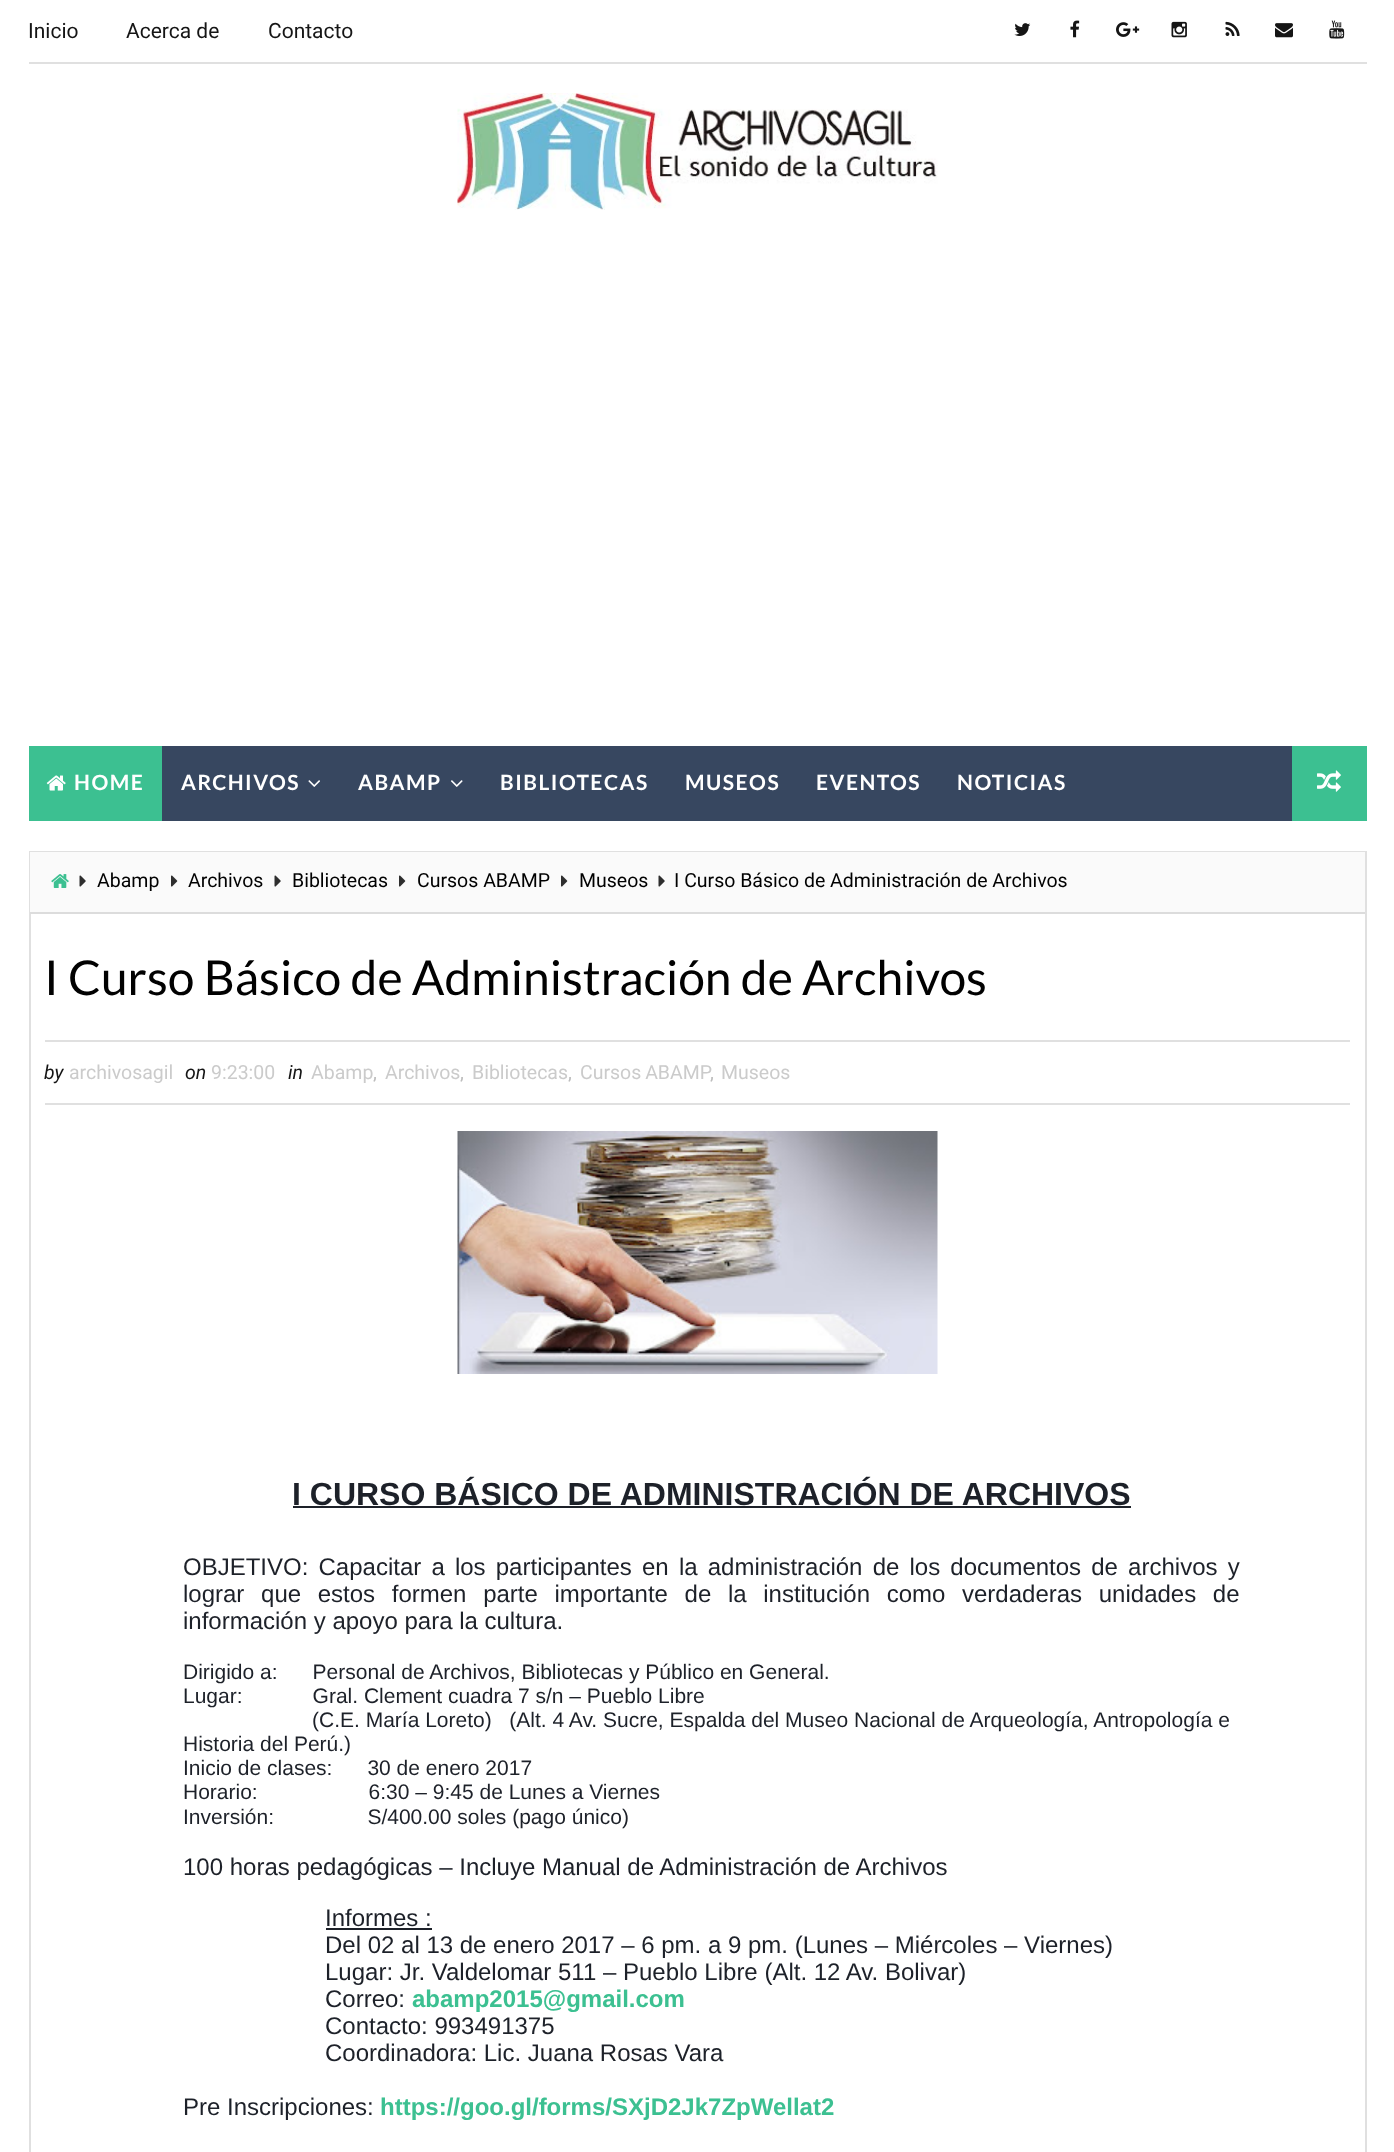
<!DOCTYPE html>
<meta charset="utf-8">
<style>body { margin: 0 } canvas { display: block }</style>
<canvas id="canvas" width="1394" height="2152"></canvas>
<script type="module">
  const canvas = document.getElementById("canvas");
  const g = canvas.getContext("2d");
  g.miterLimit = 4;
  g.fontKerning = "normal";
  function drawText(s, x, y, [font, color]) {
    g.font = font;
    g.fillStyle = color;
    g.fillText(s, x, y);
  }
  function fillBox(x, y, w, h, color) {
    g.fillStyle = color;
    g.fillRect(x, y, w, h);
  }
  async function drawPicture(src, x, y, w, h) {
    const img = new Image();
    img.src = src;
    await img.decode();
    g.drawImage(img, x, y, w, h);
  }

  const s1 = ["21px Roboto", "#151515"];
  const s2 = ["bold 21px Lato", "#FFFFFF"];
  const s3 = ["19.5px Roboto", "#010101"];
  const s4 = ["48px Lato", "#010101"];
  const s5 = ["italic 19.5px Roboto", "#151515"];
  const s6 = ["19.5px Roboto", "#CBCBCB"];
  const s7 = ["19.5px Roboto", "#BDBDBD"];
  const s8 = ["bold 32px Liberation Sans", "#1D2129"];
  const s9 = ["24px Liberation Sans", "#1D2129"];
  const s10 = ["21px Liberation Sans", "#1D2129"];
  const s11 = ["bold 24px Liberation Sans", "#3CC091"];

  fillBox(0, 0, 1394, 2152, "#FFFFFF");
  fillBox(29, 62, 1338, 2, "#E0E0E0");
  drawText("Inicio", 28, 38, s1);
  drawText("Acerca de", 126, 38, s1);
  drawText("Contacto", 268, 38, s1);
  await drawPicture("pic1.png", 1014, 23, 17, 13);
  await drawPicture("pic2.png", 1070, 20, 10, 18);
  await drawPicture("pic3.png", 1116, 22, 24, 15);
  await drawPicture("pic4.png", 1171, 21, 16, 17);
  await drawPicture("pic5.png", 1225, 21, 15, 15);
  await drawPicture("pic6.png", 1275, 23, 18, 15);
  await drawPicture("pic7.png", 1329, 20, 16, 19);
  await drawPicture("pic8.png", 457, 93, 481, 117);
  fillBox(162, 746, 1130, 75, "#374760");
  fillBox(29, 746, 133, 75, "#3CC091");
  await drawPicture("pic9.png", 46, 775, 20, 16);
  g.letterSpacing = "1.5px";
  drawText("HOME", 74, 790, s2);
  drawText("ARCHIVOS", 181, 790, s2);
  await drawPicture("pic10.png", 308, 780, 12, 7);
  drawText("ABAMP", 358, 790, s2);
  await drawPicture("pic11.png", 451, 780, 12, 7);
  drawText("BIBLIOTECAS", 500, 790, s2);
  drawText("MUSEOS", 685, 790, s2);
  drawText("EVENTOS", 816, 790, s2);
  drawText("NOTICIAS", 957, 790, s2);
  fillBox(1292, 746, 75, 75, "#3CC091");
  await drawPicture("pic12.png", 1317, 770, 24, 22);
  g.strokeStyle = "#E0E0E0";
  g.lineWidth = 2;
  g.strokeRect(30, 852, 1336, 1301);
  fillBox(30, 852, 1335, 60, "#FAFAFA");
  fillBox(30, 912, 1335, 2, "#DCDCDC");
  await drawPicture("pic13.png", 51, 874, 18, 14);
  await drawPicture("pic14.png", 79, 875, 7, 12);
  g.letterSpacing = "0px";
  drawText("Abamp", 97, 887, s3);
  await drawPicture("pic15.png", 171, 875, 7, 12);
  drawText("Archivos", 188, 887, s3);
  await drawPicture("pic14.png", 274, 875, 7, 12);
  drawText("Bibliotecas", 292, 887, s3);
  await drawPicture("pic15.png", 399, 875, 7, 12);
  drawText("Cursos ABAMP", 417, 887, s3);
  await drawPicture("pic15.png", 561, 875, 7, 12);
  drawText("Museos", 579, 887, s3);
  await drawPicture("pic14.png", 658, 875, 7, 12);
  drawText("I Curso Básico de Administración de Archivos", 674, 887, s3);
  drawText("I Curso Básico de Administración de Archivos", 44, 995, s4);
  fillBox(45, 1040, 1305, 2, "#E0E0E0");
  fillBox(45, 1103, 1305, 2, "#E0E0E0");
  drawText("by", 44, 1079, s5);
  drawText("archivosagil", 69, 1079, s6);
  drawText("on", 185, 1079, s5);
  drawText("9:23:00", 211, 1079, s6);
  drawText("in", 288, 1079, s5);
  drawText("Abamp", 311, 1079, s6);
  drawText(",", 373, 1079, s7);
  drawText("Archivos", 385, 1079, s6);
  drawText(",", 460, 1079, s7);
  drawText("Bibliotecas", 472, 1079, s6);
  drawText(",", 568, 1079, s7);
  g.wordSpacing = "-1px";
  drawText("Cursos ABAMP", 580, 1079, s6);
  g.wordSpacing = "0px";
  drawText(",", 710, 1079, s7);
  drawText("Museos", 721, 1079, s6);
  await drawPicture("pic16.png", 457, 1131, 481, 243);
  drawText("I CURSO BÁSICO DE ADMINISTRACIÓN DE ARCHIVOS", 292, 1505, s8);
  fillBox(293, 1506, 838, 2, "#1D2129");
  g.wordSpacing = "3.5px";
  drawText("OBJETIVO: Capacitar a los participantes en la administración de los documentos de archivos y", 183, 1575, s9);
  g.wordSpacing = "10px";
  drawText("lograr que estos formen parte importante de la institución como verdaderas unidades de", 183, 1602, s9);
  g.wordSpacing = "0px";
  drawText("información y apoyo para la cultura.", 183, 1629, s9);
  drawText("Dirigido a:      Personal de Archivos, Bibliotecas y Público en General.", 183, 1679, s10);
  drawText("Lugar:            Gral. Clement cuadra 7 s/n – Pueblo Libre", 183, 1703, s10);
  drawText("(C.E. María Loreto)   (Alt. 4 Av. Sucre, Espalda del Museo Nacional de Arqueología, Antropología e", 312, 1727, s10);
  drawText("Historia del Perú.)", 183, 1751, s10);
  drawText("Inicio de clases:      30 de enero 2017", 183, 1775, s10);
  drawText("Horario:                   6:30 – 9:45 de Lunes a Viernes", 183, 1799, s10);
  drawText("Inversión:                S/400.00 soles (pago único)", 183, 1824, s10);
  drawText("100 horas pedagógicas – Incluye Manual de Administración de Archivos", 183, 1875, s9);
  drawText("Informes :", 325, 1926, s9);
  fillBox(326, 1928, 106, 2, "#1D2129");
  drawText("Del 02 al 13 de enero 2017 – 6 pm. a 9 pm. (Lunes – Miércoles – Viernes)", 325, 1953, s9);
  drawText("Lugar: Jr. Valdelomar 511 – Pueblo Libre (Alt. 12 Av. Bolivar)", 325, 1980, s9);
  drawText("Correo:", 325, 2007, s9);
  drawText("abamp2015@gmail.com", 412, 2007, s11);
  drawText("Contacto: 993491375", 325, 2034, s9);
  drawText("Coordinadora: Lic. Juana Rosas Vara", 325, 2061, s9);
  drawText("Pre Inscripciones:", 183, 2115, s9);
  drawText("https://goo.gl/forms/SXjD2Jk7ZpWellat2", 380, 2115, s11);
</script>
